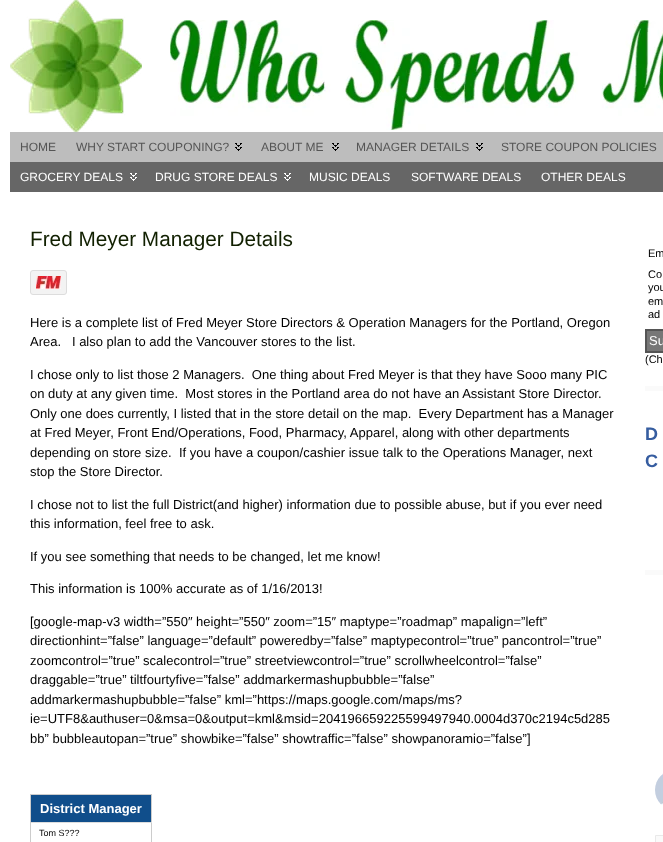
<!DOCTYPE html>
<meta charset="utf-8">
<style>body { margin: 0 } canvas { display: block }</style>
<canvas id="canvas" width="663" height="842"></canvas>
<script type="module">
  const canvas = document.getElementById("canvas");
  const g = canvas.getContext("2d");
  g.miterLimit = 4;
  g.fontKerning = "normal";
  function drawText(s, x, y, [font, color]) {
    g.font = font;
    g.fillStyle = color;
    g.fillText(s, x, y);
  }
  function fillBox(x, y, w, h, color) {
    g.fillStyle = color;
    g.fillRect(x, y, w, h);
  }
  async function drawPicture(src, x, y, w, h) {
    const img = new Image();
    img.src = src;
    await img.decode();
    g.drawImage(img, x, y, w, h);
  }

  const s1 = ["12px Liberation Sans", "#555555"];
  const s2 = ["12px Liberation Sans", "#FFFFFF"];
  const s3 = ["20.75px Liberation Sans", "#112000"];
  const s4 = ["13px Liberation Sans", "#000000"];
  const s5 = ["bold 13px Liberation Sans", "#FFFFFF"];
  const s6 = ["9px Liberation Sans", "#000000"];
  const s7 = ["11px Liberation Sans", "#000000"];
  const s8 = ["13px Liberation Sans", "#FFFFFF"];
  const s9 = ["bold 18px Liberation Sans", "#365DA0"];

  fillBox(0, 0, 663, 842, "#FFFFFF");
  await drawPicture("pic1.png", 10, 0, 132, 132);
  await drawPicture("pic2.png", 170, 20, 493, 110);
  fillBox(10, 132, 653, 30, "#BDBDBD");
  drawText("HOME", 20, 151, s1);
  await drawPicture("pic3.png", 235, 143, 7, 8);
  drawText("WHY START COUPONING?", 76, 151, s1);
  await drawPicture("pic3.png", 332, 143, 7, 8);
  drawText("ABOUT ME", 261, 151, s1);
  await drawPicture("pic3.png", 476, 143, 7, 8);
  drawText("MANAGER DETAILS", 356, 151, s1);
  drawText("STORE COUPON POLICIES", 501, 151, s1);
  fillBox(10, 162, 653, 30, "#666666");
  await drawPicture("pic4.png", 130, 173, 7, 8);
  drawText("GROCERY DEALS", 20, 181, s2);
  await drawPicture("pic4.png", 284, 173, 7, 8);
  drawText("DRUG STORE DEALS", 155, 181, s2);
  drawText("MUSIC DEALS", 309, 181, s2);
  drawText("SOFTWARE DEALS", 411, 181, s2);
  drawText("OTHER DEALS", 541, 181, s2);
  drawText("Fred Meyer Manager Details", 30, 246, s3);
  g.fillStyle = "#F3F3F3";
  g.beginPath();
  g.roundRect(30.5, 270.5, 36, 24, 2.5);
  g.fill();
  g.strokeStyle = "#DDDDDD";
  g.stroke();
  await drawPicture("pic5.png", 36, 276, 25, 13);
  drawText("Here is a complete list of Fred Meyer Store Directors & Operation Managers for the Portland, Oregon", 30, 327, s4);
  drawText("Area.   I also plan to add the Vancouver stores to the list.", 30, 346, s4);
  drawText("I chose only to list those 2 Managers.  One thing about Fred Meyer is that they have Sooo many PIC", 30, 379, s4);
  drawText("on duty at any given time.  Most stores in the Portland area do not have an Assistant Store Director.", 30, 398, s4);
  drawText("Only one does currently, I listed that in the store detail on the map.  Every Department has a Manager", 30, 418, s4);
  drawText("at Fred Meyer, Front End/Operations, Food, Pharmacy, Apparel, along with other departments", 30, 437, s4);
  drawText("depending on store size.  If you have a coupon/cashier issue talk to the Operations Manager, next", 30, 457, s4);
  drawText("stop the Store Director.", 30, 476, s4);
  drawText("I chose not to list the full District(and higher) information due to possible abuse, but if you ever need", 30, 509, s4);
  drawText("this information, feel free to ask.", 30, 528, s4);
  drawText("If you see something that needs to be changed, let me know!", 30, 561, s4);
  drawText("This information is 100% accurate as of 1/16/2013!", 30, 593, s4);
  drawText("[google-map-v3 width=”550″ height=”550″ zoom=”15″ maptype=”roadmap” mapalign=”left”", 30, 626, s4);
  drawText("directionhint=”false” language=”default” poweredby=”false” maptypecontrol=”true” pancontrol=”true”", 30, 645, s4);
  drawText("zoomcontrol=”true” scalecontrol=”true” streetviewcontrol=”true” scrollwheelcontrol=”false”", 30, 665, s4);
  drawText("draggable=”true” tiltfourtyfive=”false” addmarkermashupbubble=”false”", 30, 684, s4);
  drawText("addmarkermashupbubble=”false” kml=”https://maps.google.com/maps/ms?", 30, 704, s4);
  drawText("ie=UTF8&authuser=0&msa=0&output=kml&msid=204196659225599497940.0004d370c2194c5d285", 30, 723, s4);
  drawText("bb” bubbleautopan=”true” showbike=”false” showtraffic=”false” showpanoramio=”false”]", 30, 743, s4);
  fillBox(30, 794, 122, 1, "#CCCCCC");
  fillBox(151, 794, 1, 48, "#CCCCCC");
  fillBox(30, 823, 1, 19, "#CCCCCC");
  fillBox(31, 795, 120, 27, "#104E8B");
  fillBox(30, 822, 122, 1, "#DDDDDD");
  fillBox(30, 794, 1, 29, "#CCCCCC");
  drawText("District Manager", 40, 813, s5);
  drawText("Tom S???", 39, 836, s6);
  fillBox(645, 386, 18, 5, "#FAFAFA");
  drawText("Em", 648, 257, s7);
  drawText("Co", 648, 278, s7);
  drawText("you", 648, 291, s7);
  drawText("em", 648, 305, s7);
  drawText("ad", 648, 318, s7);
  g.fillStyle = "#777777";
  g.beginPath();
  g.rect(646, 330, 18, 22);
  g.fill();
  g.strokeStyle = "#555555";
  g.lineWidth = 2;
  g.stroke();
  drawText("Su", 649, 345, s8);
  drawText("(Ch", 645, 363, s7);
  fillBox(645, 570, 18, 5, "#FAFAFA");
  drawText("D", 645, 440, s9);
  drawText("C", 645, 467, s9);
  await drawPicture("pic6.png", 655, 773, 8, 32);
  g.fillStyle = "#FAFAFA";
  g.beginPath();
  g.rect(655.5, 835.5, 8, 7);
  g.fill();
  g.strokeStyle = "#E9E9E9";
  g.lineWidth = 1;
  g.stroke();
</script>
